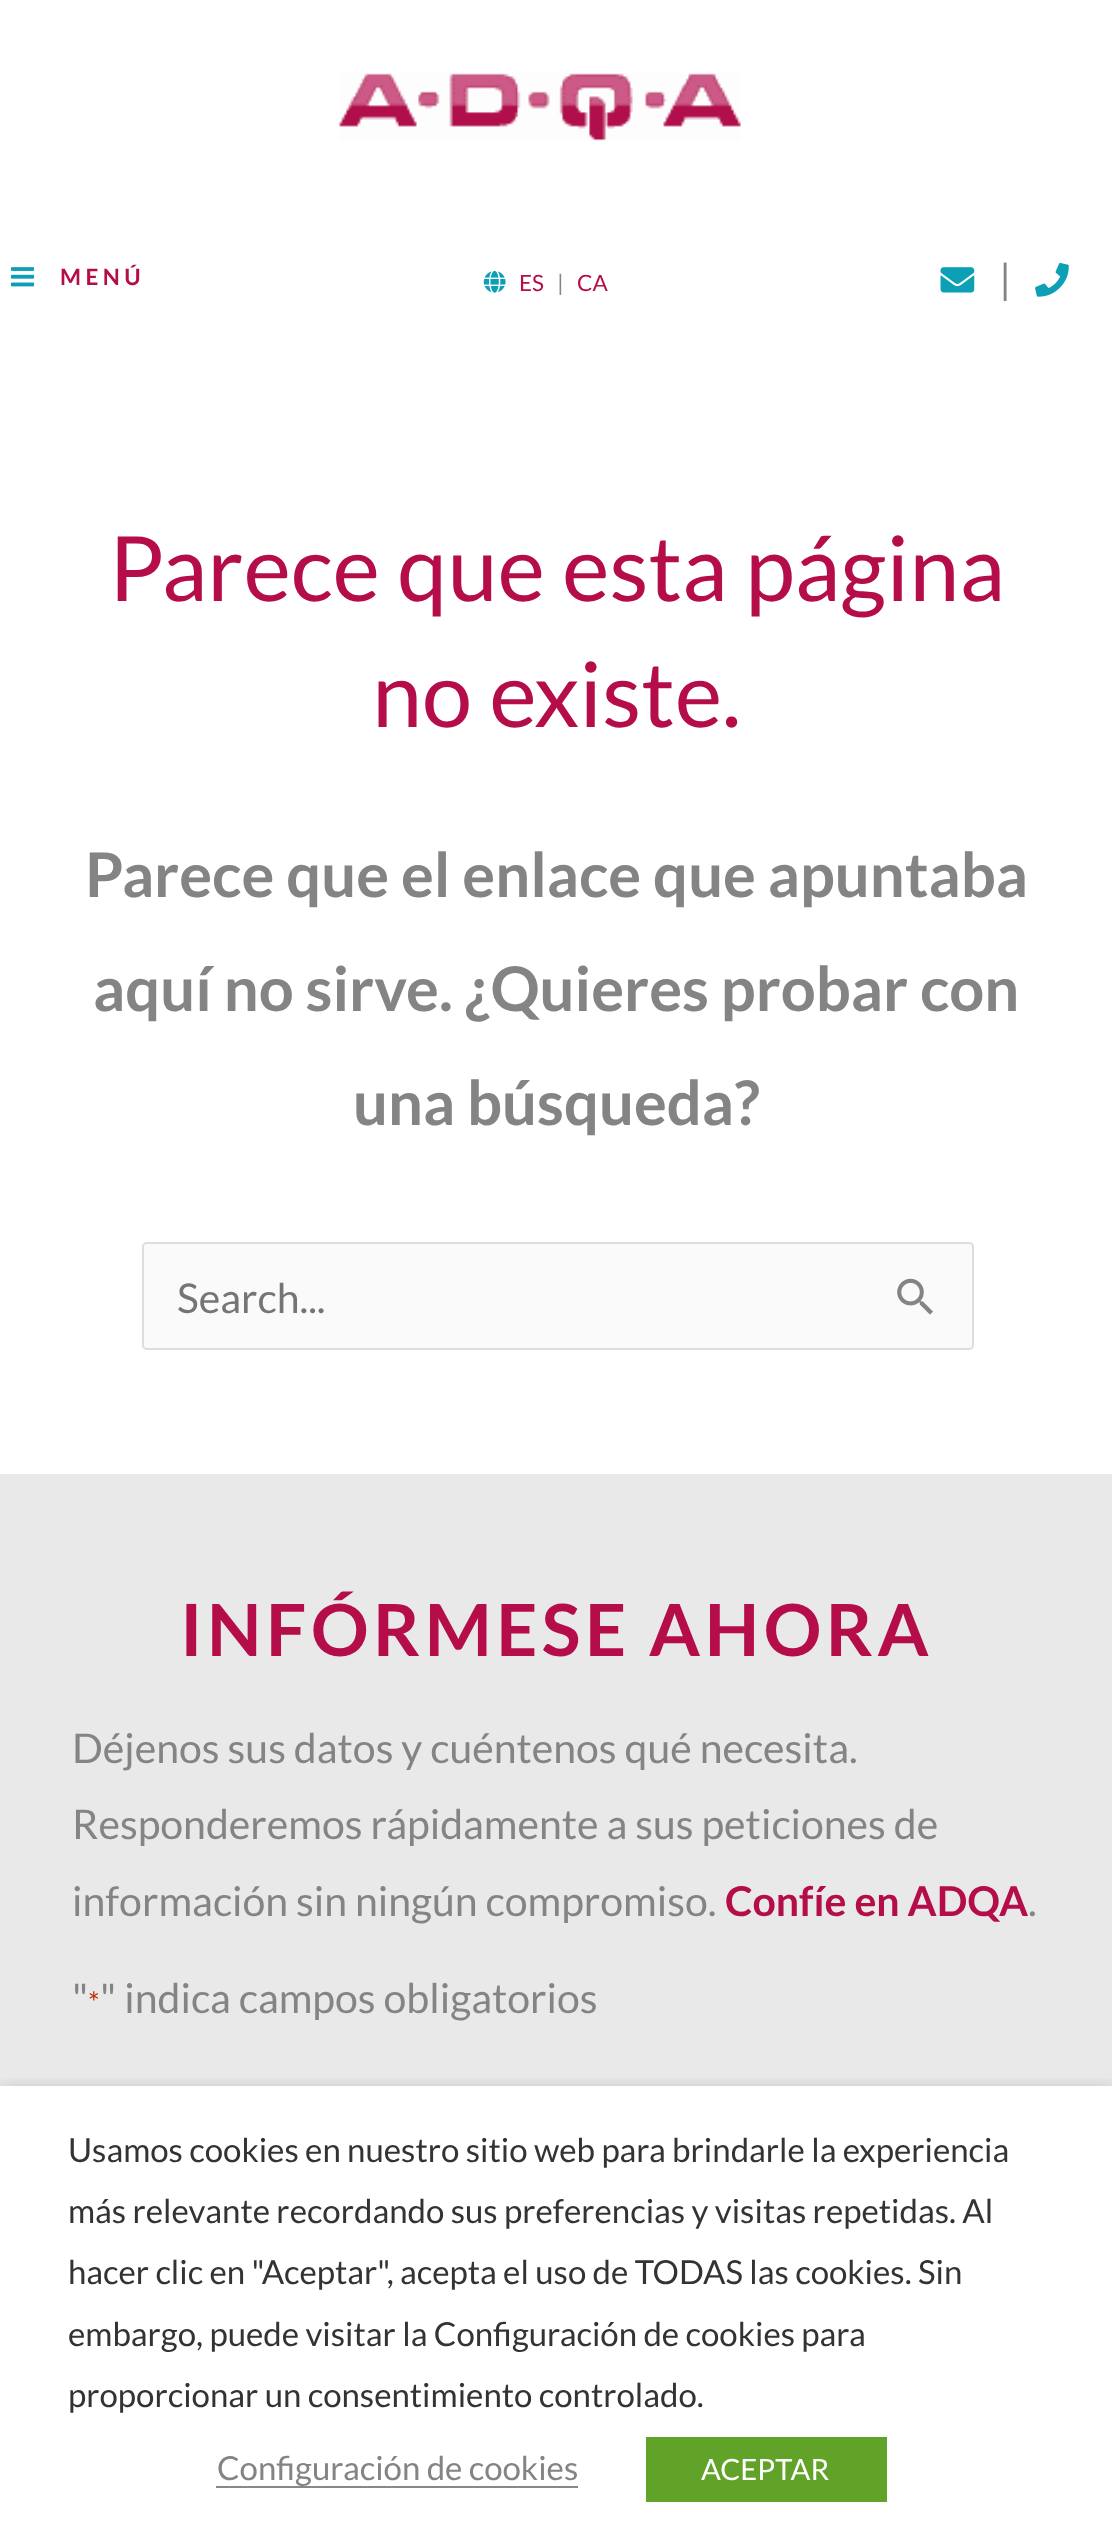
<!DOCTYPE html>
<meta charset="utf-8">
<style>body { margin: 0 } canvas { display: block }</style>
<canvas id="canvas" width="1112" height="2545"></canvas>
<script type="module">
  const canvas = document.getElementById("canvas");
  const g = canvas.getContext("2d");
  g.miterLimit = 4;
  g.fontKerning = "normal";
  function drawText(s, x, y, [font, color]) {
    g.font = font;
    g.fillStyle = color;
    g.fillText(s, x, y);
  }
  function fillBox(x, y, w, h, color) {
    g.fillStyle = color;
    g.fillRect(x, y, w, h);
  }
  async function drawPicture(src, x, y, w, h) {
    const img = new Image();
    img.src = src;
    await img.decode();
    g.drawImage(img, x, y, w, h);
  }

  const s1 = ["bold 22.5px Lato", "#B50D4A"];
  const s2 = ["22.5px Lato", "#B50D4A"];
  const s3 = ["22.5px Lato", "#848484"];
  const s4 = ["41px Lato", "#848484"];
  const s5 = ["90px Lato", "#B50D4A"];
  const s6 = ["bold 61.5px Lato", "#848484"];
  const s7 = ["41px Lato", "#757575"];
  const s8 = ["bold 72px Lato", "#B50D4A"];
  const s9 = ["bold 41px Lato", "#B50D4A"];
  const s10 = ["29px Lato", "#C02B0A"];
  const s11 = ["33px Lato", "#333333"];
  const s12 = ["33px Lato", "#848484"];
  const s13 = ["29.25px Lato", "#FFFFFF"];

  fillBox(0, 0, 1112, 2545, "#FFFFFF");
  await drawPicture("pic1.png", 339, 73, 402, 68);
  await drawPicture("pic2.png", 10, 267, 25, 20);
  g.letterSpacing = "4.5px";
  drawText("MENÚ", 60, 285, s1);
  await drawPicture("pic3.png", 483, 270, 23, 23);
  g.letterSpacing = "0px";
  drawText("ES", 519, 291, s2);
  drawText("|", 557, 291, s3);
  drawText("CA", 577, 291, s2);
  await drawPicture("pic4.png", 940, 267, 35, 26);
  drawText("|", 999, 294, s4);
  await drawPicture("pic5.png", 1035, 263, 34, 34);
  drawText("Parece que esta página", 109, 601, s5);
  drawText("no existe.", 372, 727, s5);
  drawText("Parece que el enlace que apuntaba", 85, 897, s6);
  drawText("aquí no sirve. ¿Quieres probar con", 93, 1011, s6);
  drawText("una búsqueda?", 353, 1125, s6);
  g.fillStyle = "#FAFAFA";
  g.beginPath();
  g.roundRect(143, 1243, 830, 106, 4);
  g.fill();
  g.strokeStyle = "#DDDDDD";
  g.lineWidth = 2;
  g.stroke();
  drawText("Search...", 177, 1313, s7);
  await drawPicture("pic6.png", 897, 1278, 36, 37);
  fillBox(0, 1474, 1112, 612, "#E9E9E9");
  g.letterSpacing = "4.5px";
  drawText("INFÓRMESE AHORA", 180, 1656, s8);
  g.letterSpacing = "0px";
  drawText("Déjenos sus datos y cuéntenos qué necesita.", 72, 1763, s4);
  drawText("Responderemos rápidamente a sus peticiones de", 72, 1839, s4);
  drawText("información sin ningún compromiso.", 72, 1916, s4);
  drawText("Confíe en ADQA", 725, 1916, s9);
  drawText(".", 1028, 1916, s4);
  drawText("\"", 72, 2013, s4);
  drawText("*", 88, 2013, s10);
  drawText("\" indica campos obligatorios", 100, 2013, s4);
  g.save();
  g.beginPath();
  g.rect(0, 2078, 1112, 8);
  g.clip();
  g.fillStyle = "rgba(0, 0, 0, 0.5)";
  g.filter = "blur(11px)";
  g.beginPath();
  g.rect(0, 2097, 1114, 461);
  g.fill();
  g.filter = "none";
  g.restore();
  drawText("Usamos cookies en nuestro sitio web para brindarle la experiencia", 68, 2162, s11);
  drawText("más relevante recordando sus preferencias y visitas repetidas. Al", 68, 2223, s11);
  drawText("hacer clic en \"Aceptar\", acepta el uso de TODAS las cookies. Sin", 68, 2284, s11);
  drawText("embargo, puede visitar la Configuración de cookies para", 68, 2346, s11);
  drawText("proporcionar un consentimiento controlado.", 68, 2407, s11);
  drawText("Configuración de cookies", 217, 2480, s12);
  fillBox(216, 2486, 362, 2, "#898888");
  fillBox(646, 2437, 241, 65, "#61A229");
  drawText("ACEPTAR", 701, 2480, s13);
</script>
